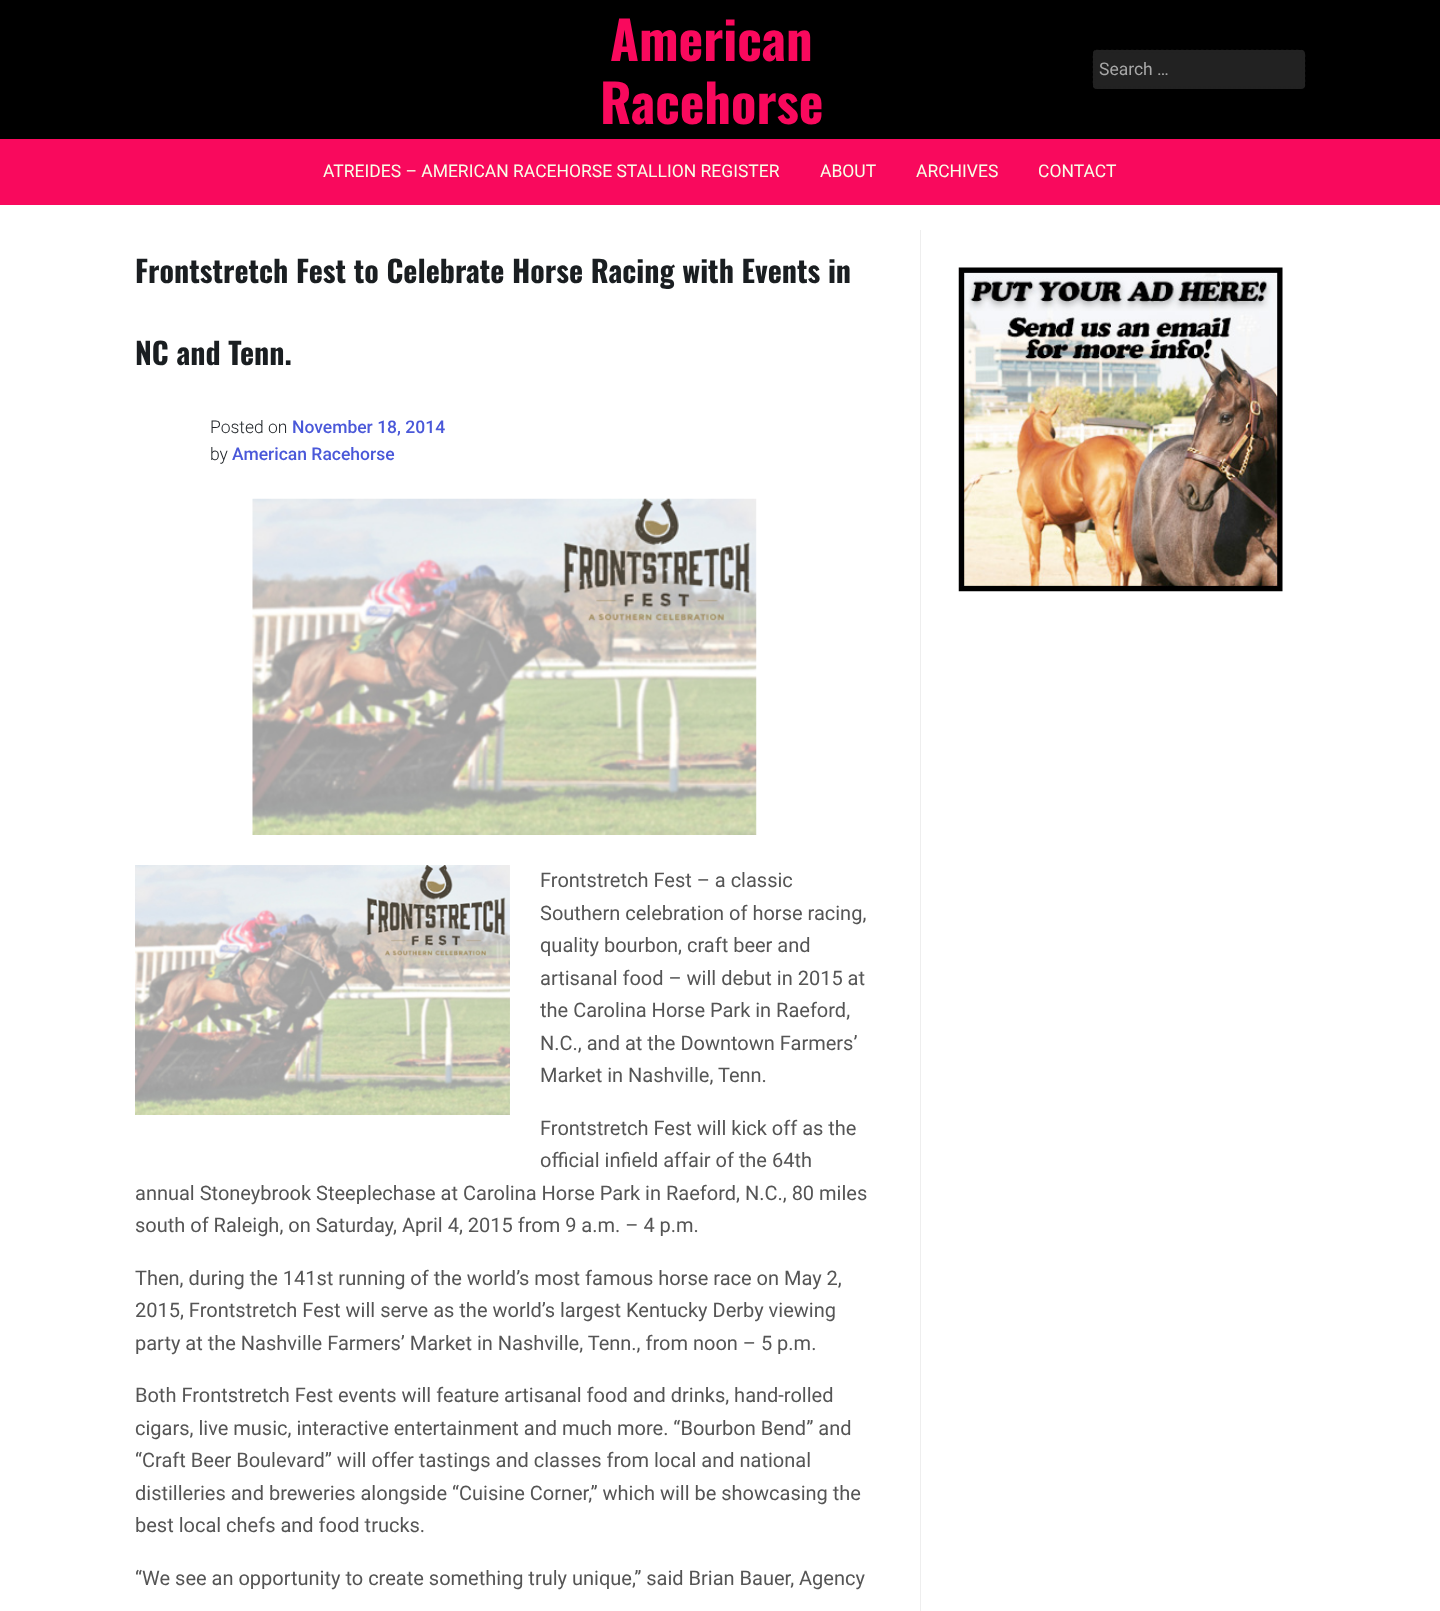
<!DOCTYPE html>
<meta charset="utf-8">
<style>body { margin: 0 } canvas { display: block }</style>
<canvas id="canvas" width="1440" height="1611"></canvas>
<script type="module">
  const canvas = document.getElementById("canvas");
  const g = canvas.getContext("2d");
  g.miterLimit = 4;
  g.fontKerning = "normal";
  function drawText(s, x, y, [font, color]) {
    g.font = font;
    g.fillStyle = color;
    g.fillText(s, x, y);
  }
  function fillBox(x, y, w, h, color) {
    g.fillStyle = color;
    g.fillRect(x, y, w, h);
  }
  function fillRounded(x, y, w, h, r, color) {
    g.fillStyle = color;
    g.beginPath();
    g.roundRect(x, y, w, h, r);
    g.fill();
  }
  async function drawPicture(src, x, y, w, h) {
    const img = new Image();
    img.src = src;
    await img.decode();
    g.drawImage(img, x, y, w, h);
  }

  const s1 = ["bold 52.5px Oswald", "#F9095D"];
  const s2 = ["17.5px Roboto", "#A7A7A7"];
  const s3 = ["17.5px Roboto", "#F9FFE7"];
  const s4 = ["bold 30px Oswald", "#1A1E21"];
  const s5 = ["300 17.5px Roboto", "#212529"];
  const s6 = ["500 17.5px Roboto", "#4A58D9"];
  const s7 = ["20px Roboto", "#555555"];

  fillBox(0, 0, 1440, 1611, "#FFFFFF");
  fillBox(0, 0, 1440, 139, "#000000");
  drawText("American", 610, 61, s1);
  drawText("Racehorse", 600, 124, s1);
  fillRounded(1093, 50, 212, 39, 4, "#222222");
  g.beginPath();
  g.moveTo(1096, 51);
  g.lineTo(1301, 51);
  g.bezierCurveTo(1302.5, 51, 1304, 52.5, 1304, 54);
  g.lineTo(1304, 85);
  g.bezierCurveTo(1304, 86.5, 1302.5, 87.5, 1301, 87.5);
  g.lineTo(1096, 87.5);
  g.bezierCurveTo(1095, 87.5, 1094, 86.5, 1094, 85);
  g.lineTo(1094, 54);
  g.bezierCurveTo(1094, 52.5, 1095, 51, 1096, 51);
  g.closePath();
  g.strokeStyle = "#222222";
  g.lineWidth = 2.5;
  g.setLineDash([2.5, 2.5]);
  g.stroke();
  drawText("Search …", 1099, 75, s2);
  fillBox(0, 139, 1440, 66, "#F9095D");
  drawText("ATREIDES – AMERICAN RACEHORSE STALLION REGISTER", 323, 177, s3);
  drawText("ABOUT", 820, 177, s3);
  drawText("ARCHIVES", 916, 177, s3);
  drawText("CONTACT", 1038, 177, s3);
  drawText("Frontstretch Fest to Celebrate Horse Racing with Events in", 135, 283, s4);
  drawText("NC and Tenn.", 135, 365, s4);
  drawText("Posted on", 210, 433, s5);
  drawText("November 18, 2014", 292, 433, s6);
  drawText("by", 210, 460, s5);
  drawText("American Racehorse", 232, 460, s6);
  await drawPicture("pic1.png", 252, 498, 505, 337);
  await drawPicture("pic2.png", 135, 865, 375, 250);
  drawText("Frontstretch Fest – a classic", 540, 887, s7);
  drawText("Southern celebration of horse racing,", 540, 920, s7);
  drawText("quality bourbon, craft beer and", 540, 952, s7);
  drawText("artisanal food – will debut in 2015 at", 540, 985, s7);
  drawText("the Carolina Horse Park in Raeford,", 540, 1017, s7);
  drawText("N.C., and at the Downtown Farmers’", 540, 1050, s7);
  drawText("Market in Nashville, Tenn.", 540, 1082, s7);
  drawText("Frontstretch Fest will kick off as the", 540, 1135, s7);
  drawText("official infield affair of the 64th", 540, 1167, s7);
  drawText("annual Stoneybrook Steeplechase at Carolina Horse Park in Raeford, N.C., 80 miles", 135, 1200, s7);
  drawText("south of Raleigh, on Saturday, April 4, 2015 from 9 a.m. – 4 p.m.", 135, 1232, s7);
  drawText("Then, during the 141st running of the world’s most famous horse race on May 2,", 135, 1285, s7);
  drawText("2015, Frontstretch Fest will serve as the world’s largest Kentucky Derby viewing", 135, 1317, s7);
  drawText("party at the Nashville Farmers’ Market in Nashville, Tenn., from noon – 5 p.m.", 135, 1350, s7);
  drawText("Both Frontstretch Fest events will feature artisanal food and drinks, hand-rolled", 135, 1402, s7);
  drawText("cigars, live music, interactive entertainment and much more. “Bourbon Bend” and", 135, 1435, s7);
  drawText("“Craft Beer Boulevard” will offer tastings and classes from local and national", 135, 1467, s7);
  drawText("distilleries and breweries alongside “Cuisine Corner,” which will be showcasing the", 135, 1500, s7);
  drawText("best local chefs and food trucks.", 135, 1532, s7);
  drawText("“We see an opportunity to create something truly unique,” said Brian Bauer, Agency", 135, 1585, s7);
  fillBox(920, 230, 1, 1381, "#EEEEEE");
  await drawPicture("pic3.png", 958, 267, 325, 325);
</script>
